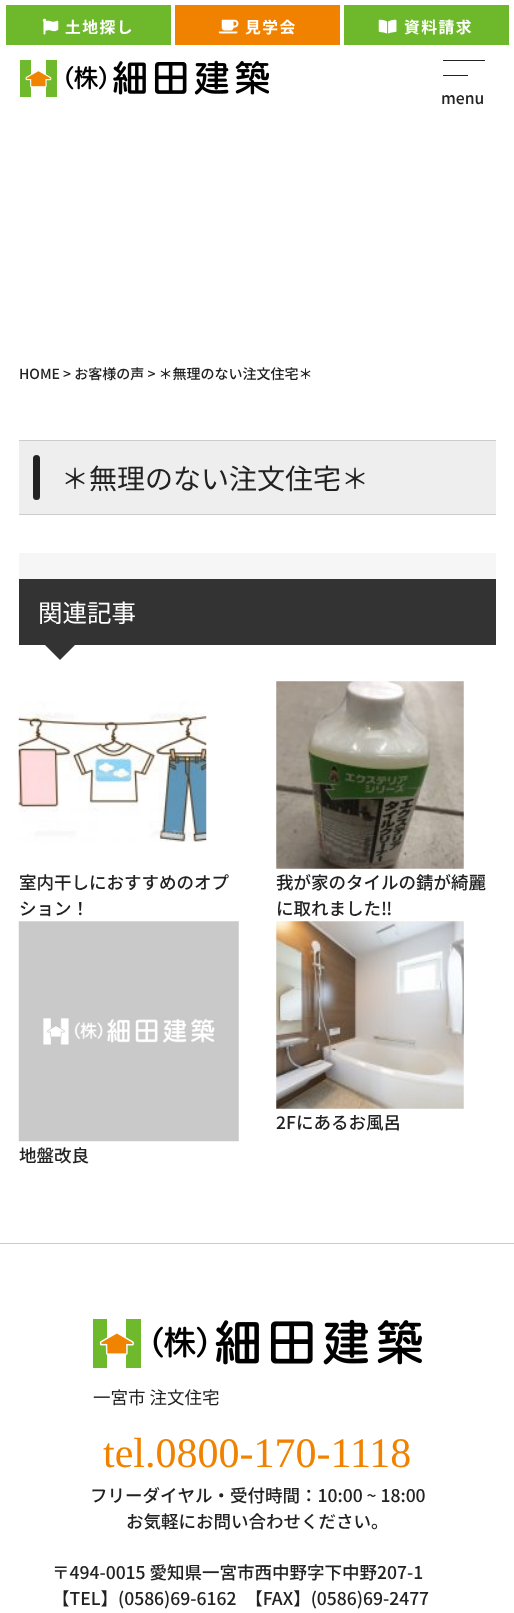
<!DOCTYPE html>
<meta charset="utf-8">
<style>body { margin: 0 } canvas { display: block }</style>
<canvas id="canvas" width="514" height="1613"></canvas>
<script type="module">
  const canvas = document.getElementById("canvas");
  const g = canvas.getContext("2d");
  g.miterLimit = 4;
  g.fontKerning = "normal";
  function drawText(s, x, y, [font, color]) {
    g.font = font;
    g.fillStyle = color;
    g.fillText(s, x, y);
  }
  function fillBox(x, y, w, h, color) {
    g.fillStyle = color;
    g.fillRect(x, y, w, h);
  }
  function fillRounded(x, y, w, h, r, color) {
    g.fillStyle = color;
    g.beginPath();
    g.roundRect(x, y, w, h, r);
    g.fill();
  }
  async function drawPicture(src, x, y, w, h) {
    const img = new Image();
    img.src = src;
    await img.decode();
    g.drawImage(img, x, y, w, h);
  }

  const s1 = ["bold 15.75px Noto Sans CJK JP", "#FFFFFF"];
  const s2 = ["500 15.75px Noto Sans CJK JP", "#222222"];
  const s3 = ["500 14px Noto Sans CJK JP", "#222222"];
  const s4 = ["28px Noto Sans CJK JP", "#222222"];
  const s5 = ["24.5px Noto Sans CJK JP", "#FFFFFF"];
  const s6 = ["500 17.5px Noto Sans CJK JP", "#222222"];
  const s7 = ["17.5px Noto Sans CJK JP", "#222222"];
  const s8 = ["42px Liberation Serif", "#F08200"];

  fillBox(0, 0, 514, 1613, "#FFFFFF");
  fillBox(6, 5, 165, 40, "#6EB92B");
  await drawPicture("pic1.png", 42, 18, 17, 17);
  g.letterSpacing = "1.5px";
  drawText("土地探し", 65, 33, s1);
  fillBox(175, 5, 165, 40, "#F08200");
  await drawPicture("pic2.png", 218, 19, 21, 15);
  drawText("見学会", 245, 33, s1);
  fillBox(344, 5, 165, 40, "#6EB92B");
  await drawPicture("pic3.png", 378, 19, 19, 15);
  drawText("資料請求", 404, 33, s1);
  await drawPicture("pic4.png", 20, 60, 249, 37);
  fillBox(443, 60, 42, 1, "#222222");
  fillBox(443, 75, 25, 1, "#222222");
  g.letterSpacing = "0px";
  drawText("menu", 441, 104, s2);
  drawText("HOME > お客様の声 > ＊無理のない注文住宅＊", 19, 379, s3);
  fillBox(19, 441, 477, 73, "#EEEEEE");
  fillBox(19, 440, 477, 1, "#CCCCCC");
  fillBox(19, 514, 477, 1, "#CCCCCC");
  fillRounded(33, 455, 7, 45, 3.5, "#222222");
  drawText("＊無理のない注文住宅＊", 61, 489, s4);
  fillBox(19, 553, 477, 26, "#F6F6F6");
  fillBox(19, 579, 477, 66, "#333333");
  drawText("関連記事", 38, 622, s5);
  g.fillStyle = "#333333";
  g.beginPath();
  g.moveTo(38, 638);
  g.lineTo(82, 638);
  g.lineTo(60, 660);
  g.closePath();
  g.fill();
  await drawPicture("pic5.png", 18, 701, 189, 142);
  drawText("室内干しにおすすめのオプ", 19, 889, s6);
  drawText("ション！", 19, 915, s6);
  await drawPicture("pic6.png", 276, 681, 188, 188);
  drawText("我が家のタイルの錆が綺麗", 276, 889, s6);
  drawText("に取れました‼︎", 276, 915, s6);
  await drawPicture("pic7.png", 276, 921, 188, 188);
  drawText("2Fにあるお風呂", 276, 1129, s6);
  await drawPicture("pic8.png", 18, 921, 221, 221);
  drawText("地盤改良", 19, 1162, s6);
  fillBox(0, 1243, 514, 1, "#CCCCCC");
  await drawPicture("pic9.png", 93, 1319, 329, 49);
  drawText("一宮市 注文住宅", 93, 1404, s7);
  drawText("tel.0800-170-1118", 103, 1467, s8);
  drawText("フリーダイヤル・受付時間：10:00 ~ 18:00", 90, 1502, s6);
  drawText("お気軽にお問い合わせください。", 126, 1528, s6);
  drawText("〒494-0015 愛知県一宮市西中野字下中野207-1", 52, 1579, s6);
  drawText("【TEL】(0586)69-6162　【FAX】(0586)69-2477", 52, 1605, s6);
</script>
